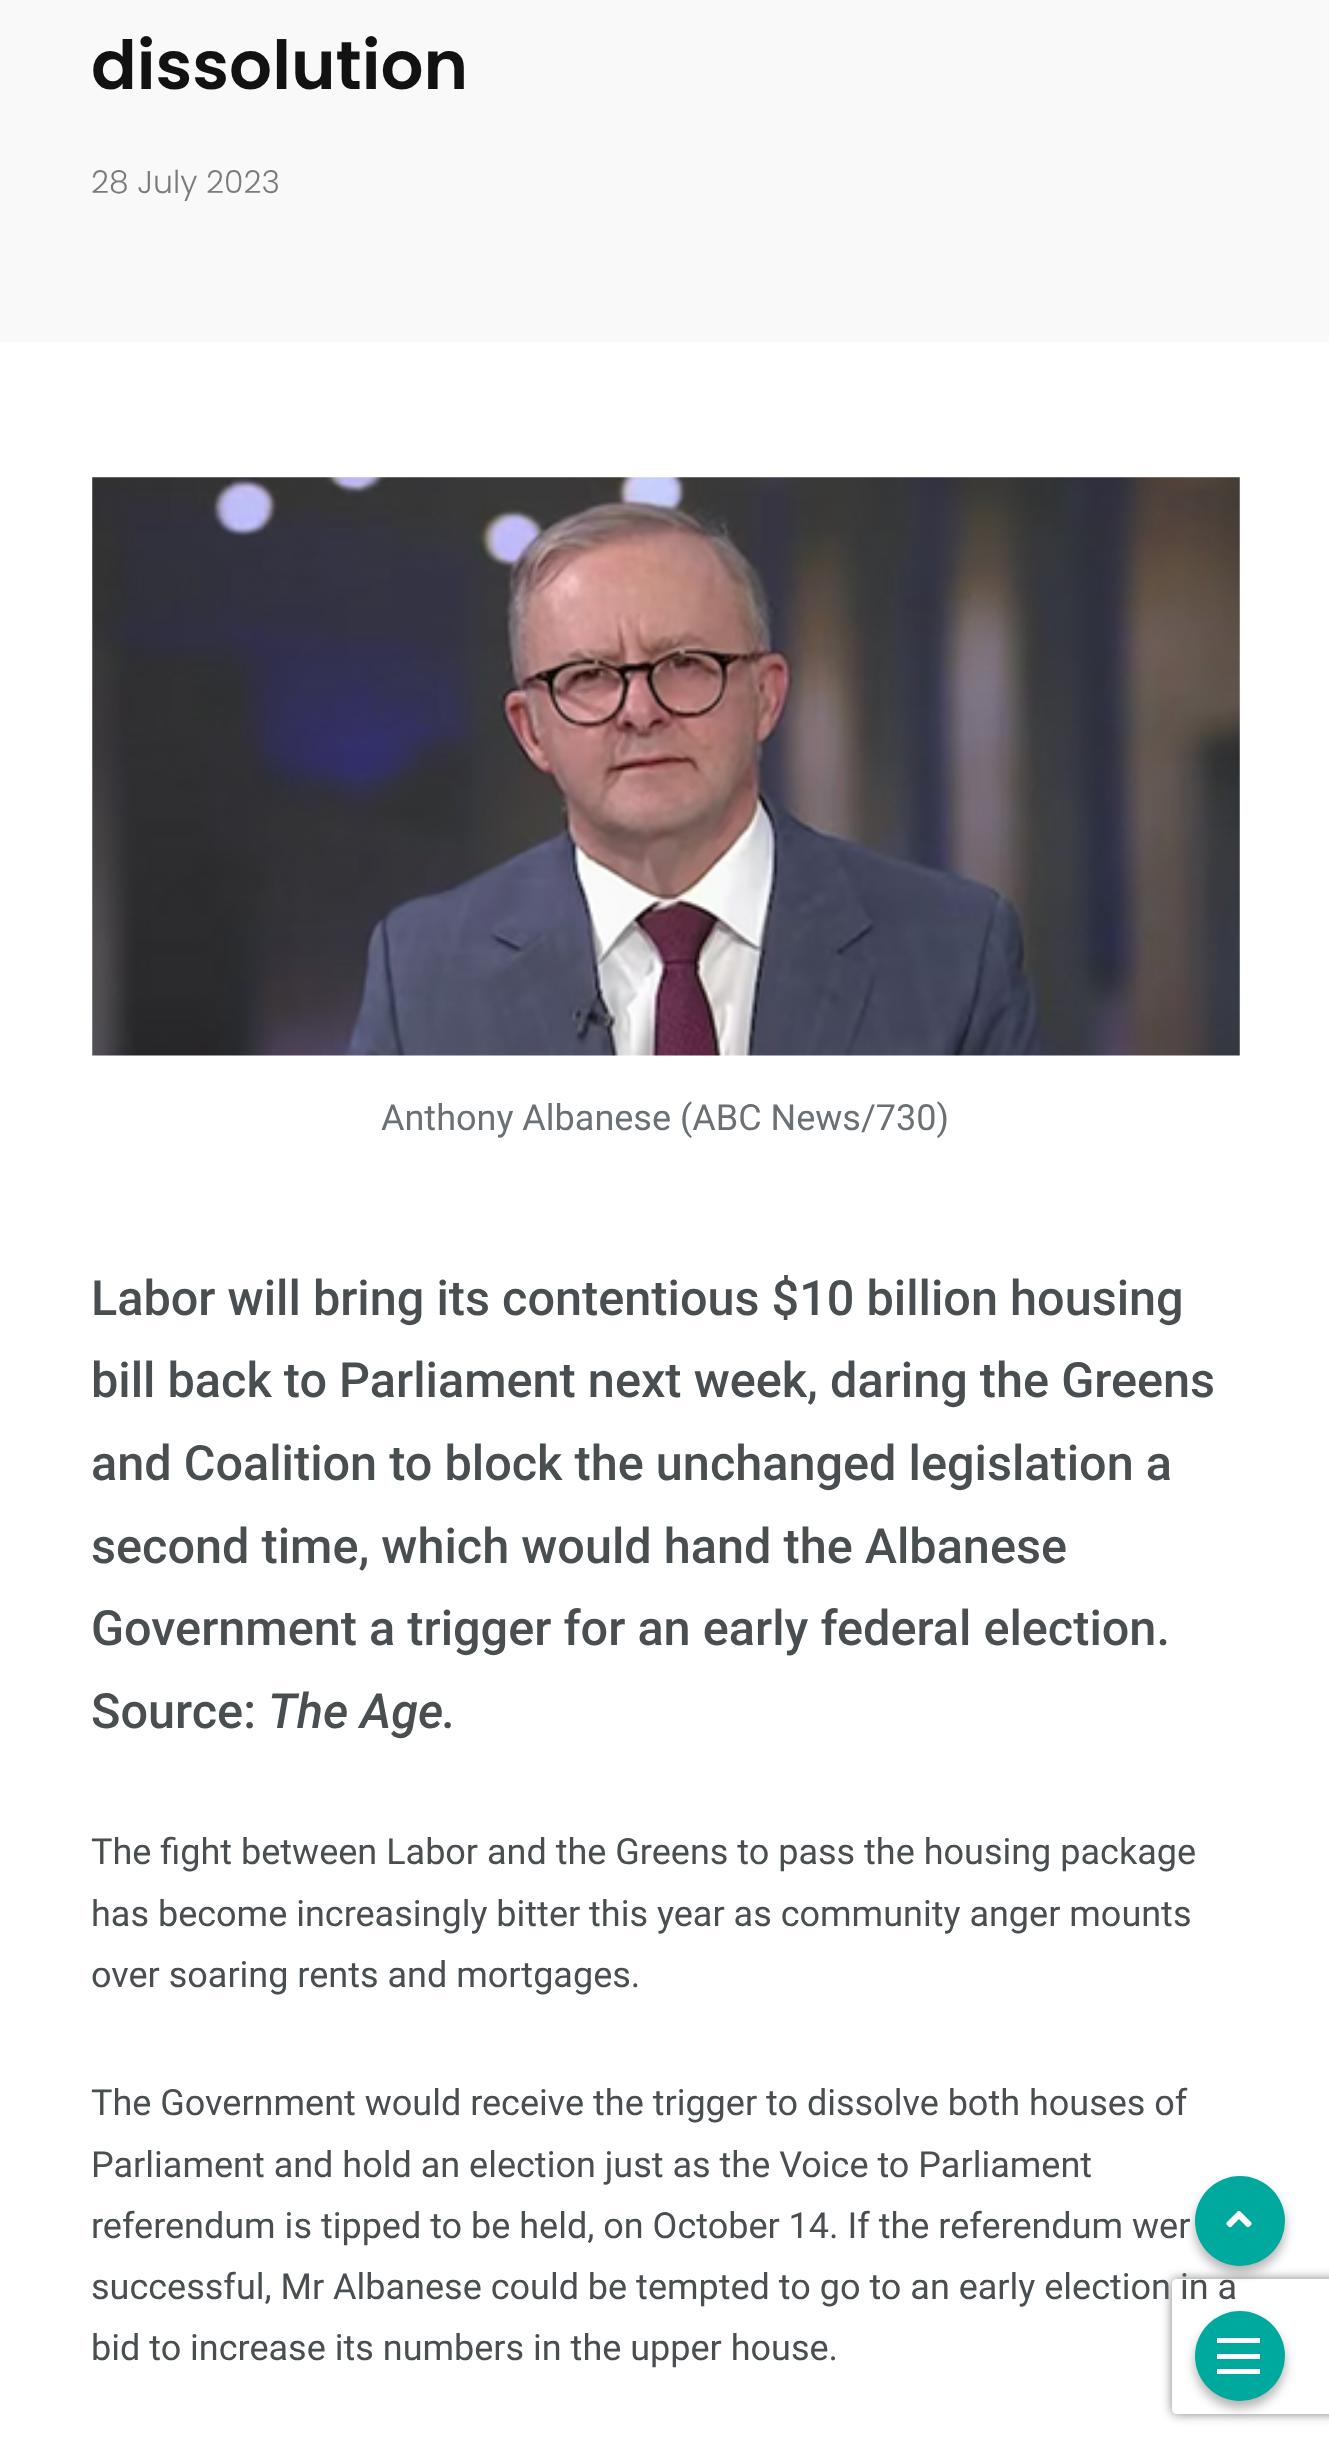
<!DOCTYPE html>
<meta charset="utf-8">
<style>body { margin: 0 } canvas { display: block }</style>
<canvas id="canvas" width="1329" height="2444"></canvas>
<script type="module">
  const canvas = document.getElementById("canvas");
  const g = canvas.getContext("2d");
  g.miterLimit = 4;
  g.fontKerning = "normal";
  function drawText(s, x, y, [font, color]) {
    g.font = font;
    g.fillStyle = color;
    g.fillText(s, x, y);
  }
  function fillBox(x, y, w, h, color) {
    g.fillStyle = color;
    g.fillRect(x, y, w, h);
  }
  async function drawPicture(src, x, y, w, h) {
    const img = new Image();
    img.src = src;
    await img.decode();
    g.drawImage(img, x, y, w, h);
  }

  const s1 = ["600 67.5px Poppins", "#121213"];
  const s2 = ["300 31.5px Poppins", "#7B7B7B"];
  const s3 = ["36px Roboto", "#6B7074"];
  const s4 = ["500 48.6px Roboto", "#494E51"];
  const s5 = ["italic 500 48.6px Roboto", "#494E51"];
  const s6 = ["36px Roboto", "#494E51"];

  fillBox(0, 0, 1329, 2444, "#FFFFFF");
  fillBox(0, 0, 1329, 342, "#F9F9F9");
  drawText("dissolution", 91, 89, s1);
  drawText("28 July 2023", 91, 193, s2);
  await drawPicture("pic1.png", 92, 477, 1148, 579);
  drawText("Anthony Albanese (ABC News/730)", 381, 1130, s3);
  drawText("Labor will bring its contentious $10 billion housing", 91, 1315, s4);
  drawText("bill back to Parliament next week, daring the Greens", 91, 1397, s4);
  drawText("and Coalition to block the unchanged legislation a", 91, 1480, s4);
  drawText("second time, which would hand the Albanese", 91, 1563, s4);
  drawText("Government a trigger for an early federal election.", 91, 1645, s4);
  drawText("Source:", 91, 1728, s4);
  drawText("The Age.", 268, 1728, s5);
  drawText("The fight between Labor and the Greens to pass the housing package", 91, 1864, s6);
  drawText("has become increasingly bitter this year as community anger mounts", 91, 1926, s6);
  drawText("over soaring rents and mortgages.", 91, 1987, s6);
  drawText("The Government would receive the trigger to dissolve both houses of", 91, 2115, s6);
  drawText("Parliament and hold an election just as the Voice to Parliament", 91, 2177, s6);
  drawText("referendum is tipped to be held, on October 14. If the referendum wer", 91, 2238, s6);
  drawText("successful, Mr Albanese could be tempted to go to an early election in a", 91, 2299, s6);
  drawText("bid to increase its numbers in the upper house.", 91, 2360, s6);
  g.fillStyle = "rgba(0, 0, 0, 0.3)";
  g.filter = "blur(5.5px)";
  g.beginPath();
  g.roundRect(1195, 2318, 90, 90, 45);
  g.fill();
  g.filter = "none";
  g.save();
  g.beginPath();
  g.moveTo(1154, 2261);
  g.lineTo(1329, 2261);
  g.lineTo(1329, 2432);
  g.lineTo(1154, 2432);
  g.closePath();
  g.moveTo(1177, 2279);
  g.lineTo(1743, 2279);
  g.bezierCurveTo(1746, 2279, 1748, 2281, 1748, 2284);
  g.lineTo(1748, 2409);
  g.bezierCurveTo(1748, 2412, 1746, 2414, 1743, 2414);
  g.lineTo(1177, 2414);
  g.bezierCurveTo(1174, 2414, 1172, 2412, 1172, 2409);
  g.lineTo(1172, 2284);
  g.bezierCurveTo(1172, 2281, 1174, 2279, 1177, 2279);
  g.closePath();
  g.clip("evenodd");
  g.fillStyle = "#808080";
  g.filter = "blur(5.5px)";
  g.beginPath();
  g.roundRect(1172, 2279, 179, 135, 5);
  g.fill();
  g.filter = "none";
  g.restore();
  g.fillStyle = "#00A99D";
  g.beginPath();
  g.arc(1240, 2356, 45, 0, Math.PI * 2);
  g.fill();
  fillBox(1217, 2338, 43, 5, "#FFFFFF");
  fillBox(1217, 2354, 43, 5, "#FFFFFF");
  fillBox(1217, 2369, 43, 5, "#FFFFFF");
  g.fillStyle = "rgba(0, 0, 0, 0.3)";
  g.filter = "blur(5.5px)";
  g.beginPath();
  g.roundRect(1195, 2183, 90, 90, 45);
  g.fill();
  g.filter = "none";
  g.fillStyle = "#00A99D";
  g.beginPath();
  g.arc(1240, 2221, 45, 0, Math.PI * 2);
  g.fill();
  await drawPicture("pic2.png", 1226, 2211, 26, 17);
</script>
